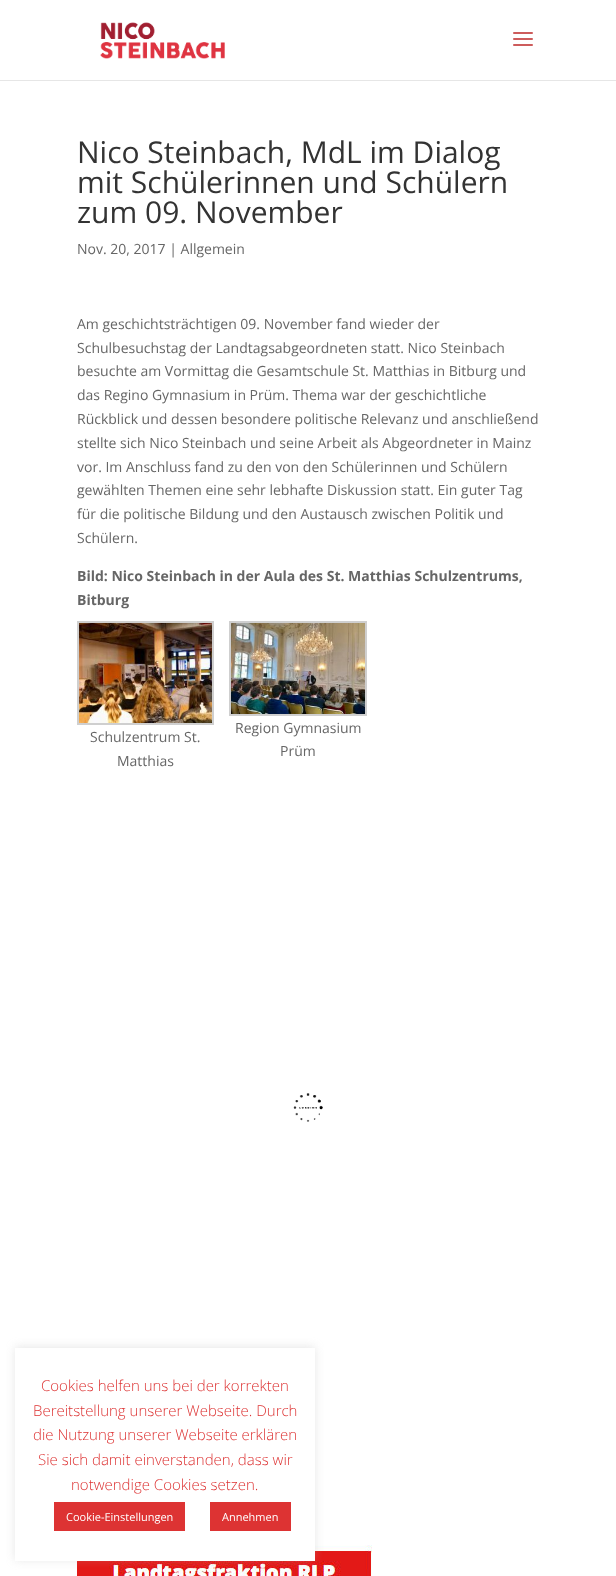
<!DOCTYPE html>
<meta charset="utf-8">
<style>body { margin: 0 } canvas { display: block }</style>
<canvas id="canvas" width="616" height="1576"></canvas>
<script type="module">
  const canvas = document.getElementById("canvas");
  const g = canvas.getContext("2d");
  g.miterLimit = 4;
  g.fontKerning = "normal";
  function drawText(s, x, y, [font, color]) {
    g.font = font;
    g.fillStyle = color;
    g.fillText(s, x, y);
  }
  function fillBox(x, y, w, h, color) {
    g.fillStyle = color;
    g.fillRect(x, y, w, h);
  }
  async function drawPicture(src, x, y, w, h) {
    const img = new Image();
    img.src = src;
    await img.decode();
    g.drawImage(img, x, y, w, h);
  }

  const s1 = ["30px Open Sans", "#333333"];
  const s2 = ["14px Open Sans", "#666666"];
  const s3 = ["bold 14px Open Sans", "#666666"];
  const s4 = ["300 15px Open Sans", "#DD3333"];
  const s5 = ["11px Open Sans", "#FFFFFF"];

  fillBox(0, 0, 616, 1576, "#FFFFFF");
  fillBox(0, 80, 616, 1, "#E6E6E6");
  await drawPicture("pic1.png", 100, 22, 125, 37);
  await drawPicture("pic2.png", 513, 32, 20, 14);
  drawText("Nico Steinbach, MdL im Dialog", 77, 163, s1);
  drawText("mit Schülerinnen und Schülern", 77, 193, s1);
  drawText("zum 09. November", 77, 223, s1);
  drawText("Nov. 20, 2017 | Allgemein", 77, 254, s2);
  drawText("Am geschichtsträchtigen 09. November fand wieder der", 77, 329, s2);
  drawText("Schulbesuchstag der Landtagsabgeordneten statt. Nico Steinbach", 77, 353, s2);
  drawText("besuchte am Vormittag die Gesamtschule St. Matthias in Bitburg und", 77, 376, s2);
  drawText("das Regino Gymnasium in Prüm. Thema war der geschichtliche", 77, 400, s2);
  drawText("Rückblick und dessen besondere politische Relevanz und anschließend", 77, 424, s2);
  drawText("stellte sich Nico Steinbach und seine Arbeit als Abgeordneter in Mainz", 77, 448, s2);
  drawText("vor. Im Anschluss fand zu den von den Schülerinnen und Schülern", 77, 472, s2);
  drawText("gewählten Themen eine sehr lebhafte Diskussion statt. Ein guter Tag", 77, 495, s2);
  drawText("für die politische Bildung und den Austausch zwischen Politik und", 77, 519, s2);
  drawText("Schülern.", 77, 543, s2);
  drawText("Bild: Nico Steinbach in der Aula des St. Matthias Schulzentrums,", 77, 581, s3);
  drawText("Bitburg", 77, 605, s3);
  g.strokeStyle = "#CFCFCF";
  g.lineWidth = 2;
  g.strokeRect(78, 622, 135, 102);
  await drawPicture("pic3.png", 79, 623, 133, 100);
  drawText("Schulzentrum St.", 90, 742, s2);
  drawText("Matthias", 117, 766, s2);
  g.strokeRect(230, 622, 136, 93);
  await drawPicture("pic4.png", 231, 623, 134, 91);
  drawText("Region Gymnasium", 235, 733, s2);
  drawText("Prüm", 280, 756, s2);
  await drawPicture("pic5.png", 293, 1093, 30, 29);
  await drawPicture("pic6.png", 77, 1545, 295, 31);
  g.fillStyle = "rgba(172, 171, 171, 0.3)";
  g.filter = "blur(5px)";
  g.beginPath();
  g.rect(15, 1347, 300, 213);
  g.fill();
  g.filter = "none";
  fillBox(15, 1348, 300, 213, "#FFFFFF");
  drawText("Cookies helfen uns bei der korrekten", 41, 1391, s4);
  drawText("Bereitstellung unserer Webseite. Durch", 33, 1416, s4);
  drawText("die Nutzung unserer Webseite erklären", 33, 1440, s4);
  drawText("Sie sich damit einverstanden, dass wir", 38, 1465, s4);
  drawText("notwendige Cookies setzen.", 71, 1490, s4);
  fillBox(54, 1502, 131, 29, "#DD3333");
  drawText("Cookie-Einstellungen", 66, 1521, s5);
  fillBox(210, 1502, 81, 29, "#DD3333");
  drawText("Annehmen", 222, 1521, s5);
</script>
